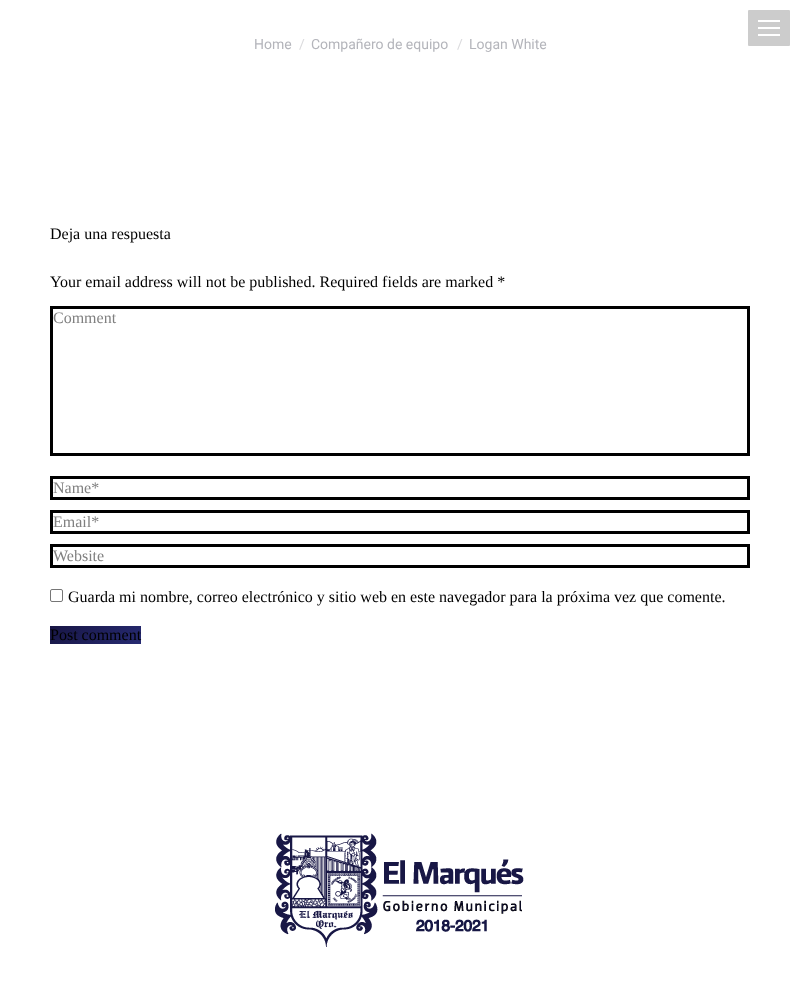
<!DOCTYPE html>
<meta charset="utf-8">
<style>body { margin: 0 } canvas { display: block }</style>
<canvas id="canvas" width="800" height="982"></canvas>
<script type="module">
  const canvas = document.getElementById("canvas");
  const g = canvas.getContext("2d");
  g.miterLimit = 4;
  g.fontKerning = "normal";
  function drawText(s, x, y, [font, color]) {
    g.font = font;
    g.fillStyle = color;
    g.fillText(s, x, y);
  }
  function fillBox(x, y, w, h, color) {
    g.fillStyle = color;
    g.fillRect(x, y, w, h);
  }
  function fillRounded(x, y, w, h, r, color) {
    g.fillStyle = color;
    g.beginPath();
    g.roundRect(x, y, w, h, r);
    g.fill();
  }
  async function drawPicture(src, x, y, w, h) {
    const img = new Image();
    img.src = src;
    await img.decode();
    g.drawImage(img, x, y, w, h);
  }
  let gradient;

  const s1 = ["14px Roboto", "#B4B5BB"];
  const s2 = ["14px Roboto", "#DADADD"];
  const s3 = ["16px Liberation Serif", "#000000"];
  const s4 = ["16px Liberation Serif", "#808080"];

  fillBox(0, 0, 800, 982, "#FFFFFF");
  drawText("Home", 254, 49, s1);
  drawText("/", 299, 49, s2);
  drawText("Compañero de equipo", 311, 49, s1);
  drawText("/", 457, 49, s2);
  drawText("Logan White", 469, 49, s1);
  fillRounded(748, 10, 42, 36, 1, "#CCCCCC");
  fillBox(758, 20, 22, 2, "#FFFFFF");
  fillBox(758, 27, 22, 2, "#FFFFFF");
  fillBox(758, 34, 22, 2, "#FFFFFF");
  drawText("Deja una respuesta", 50, 239, s3);
  drawText("Your email address will not be published. Required fields are marked *", 50, 287, s3);
  g.strokeStyle = "#000000";
  g.lineWidth = 3;
  g.strokeRect(51.5, 307.5, 697, 147);
  drawText("Comment", 53, 323, s4);
  g.strokeRect(51.5, 477.5, 697, 21);
  drawText("Name*", 53, 493, s4);
  g.strokeRect(51.5, 511.5, 697, 21);
  drawText("Email*", 53, 527, s4);
  g.strokeRect(51.5, 545.5, 697, 21);
  drawText("Website", 53, 561, s4);
  g.beginPath();
  g.roundRect(50.5, 589.5, 12, 12, 1.5);
  g.strokeStyle = "#767676";
  g.lineWidth = 1;
  g.stroke();
  drawText("Guarda mi nombre, correo electrónico y sitio web en este navegador para la próxima vez que comente.", 68, 602, s3);
  gradient = g.createLinearGradient(68, 608, 123, 662);
  gradient.addColorStop(0, "#181645");
  gradient.addColorStop(1, "#262A71");
  g.fillStyle = gradient;
  g.fillRect(50, 626, 91, 18);
  drawText("Post comment", 50, 640, s3);
  await drawPicture("pic1.png", 275, 833, 249, 114);
</script>
